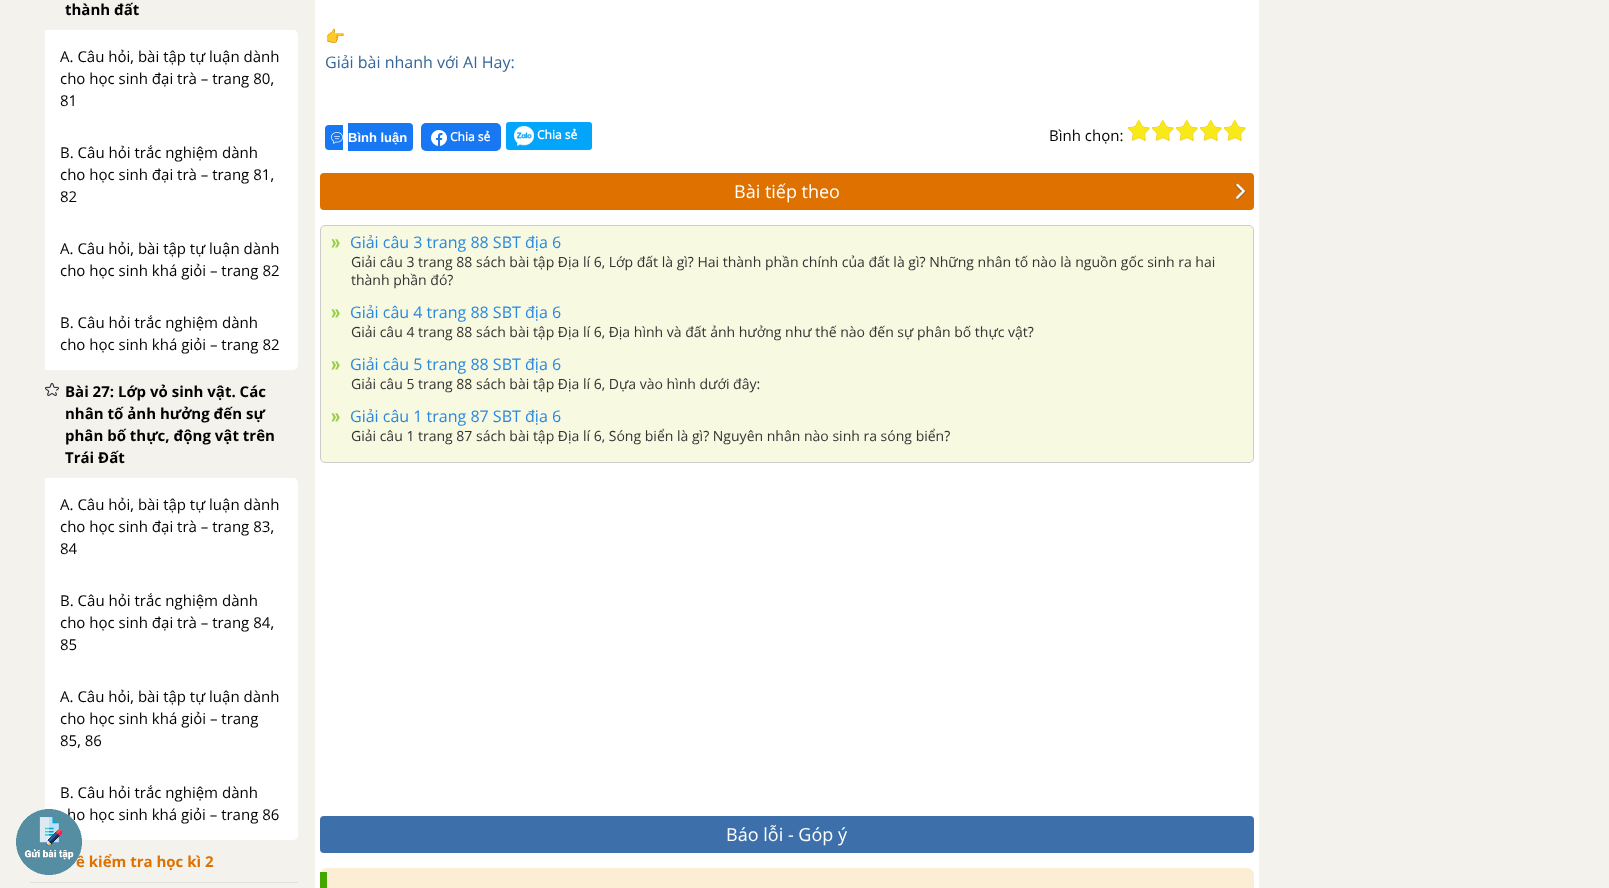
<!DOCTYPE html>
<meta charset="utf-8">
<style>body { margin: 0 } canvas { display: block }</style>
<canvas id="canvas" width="1609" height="888"></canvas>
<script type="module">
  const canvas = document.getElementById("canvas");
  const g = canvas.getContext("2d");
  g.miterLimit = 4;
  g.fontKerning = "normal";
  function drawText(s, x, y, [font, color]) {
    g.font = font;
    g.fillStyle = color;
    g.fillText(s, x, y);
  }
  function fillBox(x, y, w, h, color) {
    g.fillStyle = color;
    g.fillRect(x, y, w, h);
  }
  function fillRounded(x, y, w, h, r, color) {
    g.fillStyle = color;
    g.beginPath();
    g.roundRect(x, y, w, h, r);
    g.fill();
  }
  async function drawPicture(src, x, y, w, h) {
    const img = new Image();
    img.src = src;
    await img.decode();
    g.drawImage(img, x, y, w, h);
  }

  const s1 = ["15px Open Sans", "#000000"];
  const s2 = ["bold 15px Open Sans", "#DF7100"];
  const s3 = ["bold 15px Open Sans", "#000000"];
  const s4 = ["16px Noto Color Emoji", "#336699"];
  const s5 = ["16px Open Sans", "#336699"];
  const s6 = ["bold 13px Liberation Sans", "#FFFFFF"];
  const s7 = ["bold 12px 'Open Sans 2'", "#FFFFFF"];
  const s8 = ["18px Open Sans", "#FFFFFF"];
  const s9 = ["16px Open Sans", "#2888E1"];
  const s10 = ["14px Open Sans", "#333333"];

  fillBox(0, 0, 1609, 888, "#F4F2EC");
  g.fillStyle = "#FFFFFF";
  g.beginPath();
  g.roundRect(45, 766, 253, 74, [0, 0, 5, 0]);
  g.fill();
  drawText("ho học sinh khá giỏi – trang 86", 67, 820, s1);
  drawText("ề kiểm tra học kì 2", 76, 867, s2);
  await drawPicture("pic1.png", 16, 809, 66, 66);
  fillBox(30, 882, 268, 1, "#E0E0E0");
  drawText("thành đất", 65, 15, s3);
  g.fillStyle = "#FFFFFF";
  g.beginPath();
  g.roundRect(45, 30, 253, 96, [0, 5, 0, 0]);
  g.fill();
  drawText("A. Câu hỏi, bài tập tự luận dành", 60, 62, s1);
  drawText("cho học sinh đại trà – trang 80,", 60, 84, s1);
  drawText("81", 60, 106, s1);
  fillBox(45, 126, 253, 170, "#FFFFFF");
  drawText("B. Câu hỏi trắc nghiệm dành", 60, 158, s1);
  drawText("cho học sinh đại trà – trang 81,", 60, 180, s1);
  drawText("82", 60, 202, s1);
  drawText("A. Câu hỏi, bài tập tự luận dành", 60, 254, s1);
  drawText("cho học sinh khá giỏi – trang 82", 60, 276, s1);
  g.fillStyle = "#FFFFFF";
  g.beginPath();
  g.roundRect(45, 296, 253, 74, [0, 0, 5, 0]);
  g.fill();
  drawText("B. Câu hỏi trắc nghiệm dành", 60, 328, s1);
  drawText("cho học sinh khá giỏi – trang 82", 60, 350, s1);
  await drawPicture("pic2.png", 45, 383, 14, 13);
  drawText("Bài 27: Lớp vỏ sinh vật. Các", 65, 397, s3);
  drawText("nhân tố ảnh hưởng đến sự", 65, 419, s3);
  drawText("phân bố thực, động vật trên", 65, 441, s3);
  drawText("Trái Đất", 65, 463, s3);
  g.fillStyle = "#FFFFFF";
  g.beginPath();
  g.roundRect(45, 478, 253, 96, [0, 5, 0, 0]);
  g.fill();
  drawText("A. Câu hỏi, bài tập tự luận dành", 60, 510, s1);
  drawText("cho học sinh đại trà – trang 83,", 60, 532, s1);
  drawText("84", 60, 554, s1);
  fillBox(45, 574, 253, 192, "#FFFFFF");
  drawText("B. Câu hỏi trắc nghiệm dành", 60, 606, s1);
  drawText("cho học sinh đại trà – trang 84,", 60, 628, s1);
  drawText("85", 60, 650, s1);
  drawText("A. Câu hỏi, bài tập tự luận dành", 60, 702, s1);
  drawText("cho học sinh khá giỏi – trang", 60, 724, s1);
  drawText("85, 86", 60, 746, s1);
  drawText("B. Câu hỏi trắc nghiệm dành", 60, 798, s1);
  fillBox(315, 0, 944, 888, "#FFFFFF");
  drawText("👉", 325, 42, s4);
  drawText("Giải bài nhanh với AI Hay:", 325, 68, s5);
  g.fillStyle = "#1877F2";
  g.beginPath();
  g.roundRect(325, 125, 18, 25, [4, 0, 0, 4]);
  g.fill();
  await drawPicture("pic3.png", 331, 132, 12, 12);
  g.beginPath();
  g.roundRect(348, 123, 65, 28, [0, 4, 4, 0]);
  g.fill();
  drawText("Bình luận", 348, 142, s6);
  fillRounded(421, 123, 80, 28, 5, "#1877F2");
  await drawPicture("pic4.png", 431, 130, 16, 16);
  drawText("Chia sẻ", 450, 141, s7);
  fillRounded(506, 122, 86, 28, 3, "#03A5FA");
  await drawPicture("pic5.png", 514, 126, 20, 20);
  drawText("Chia sẻ", 537, 139, s7);
  drawText("Bình chọn:", 1049, 141, s1);
  await drawPicture("pic6.png", 1128, 120, 118, 22);
  await drawPicture("pic7.png", 1128, 120, 117, 21);
  fillRounded(320, 173, 934, 37, 4, "#DF7100");
  drawText("Bài tiếp theo", 734, 198, s8);
  await drawPicture("pic8.png", 1235, 183, 11, 17);
  g.fillStyle = "#F7F9E0";
  g.beginPath();
  g.roundRect(320.5, 225.5, 933, 237, 4.5);
  g.fill();
  g.strokeStyle = "#CCCCCC";
  g.stroke();
  await drawPicture("pic9.png", 331, 239, 9, 9);
  drawText("Giải câu 3 trang 88 SBT địa 6", 350, 248, s9);
  drawText("Giải câu 3 trang 88 sách bài tập Địa lí 6, Lớp đất là gì? Hai thành phần chính của đất là gì? Những nhân tố nào là nguồn gốc sinh ra hai", 351, 267, s10);
  drawText("thành phần đó?", 351, 285, s10);
  await drawPicture("pic9.png", 331, 309, 9, 9);
  drawText("Giải câu 4 trang 88 SBT địa 6", 350, 318, s9);
  drawText("Giải câu 4 trang 88 sách bài tập Địa lí 6, Địa hình và đất ảnh hưởng như thế nào đến sự phân bố thực vật?", 351, 337, s10);
  await drawPicture("pic9.png", 331, 361, 9, 9);
  drawText("Giải câu 5 trang 88 SBT địa 6", 350, 370, s9);
  drawText("Giải câu 5 trang 88 sách bài tập Địa lí 6, Dựa vào hình dưới đây:", 351, 389, s10);
  await drawPicture("pic9.png", 331, 413, 9, 9);
  drawText("Giải câu 1 trang 87 SBT địa 6", 350, 422, s9);
  drawText("Giải câu 1 trang 87 sách bài tập Địa lí 6, Sóng biển là gì? Nguyên nhân nào sinh ra sóng biển?", 351, 441, s10);
  fillRounded(320, 816, 934, 37, 4, "#3D70AB");
  drawText("Báo lỗi - Góp ý", 726, 841, s8);
  fillRounded(320, 868, 934, 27, 7, "#FCEDD5");
  fillBox(320, 872, 7, 16, "#44A601");
</script>
